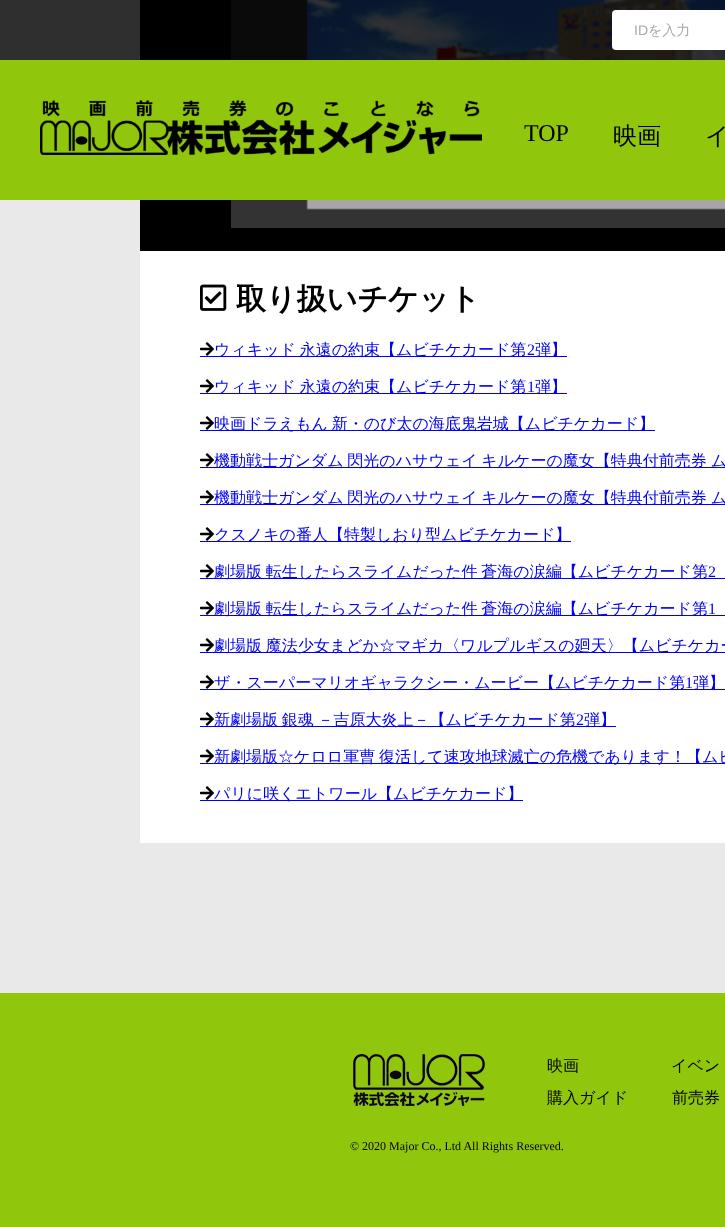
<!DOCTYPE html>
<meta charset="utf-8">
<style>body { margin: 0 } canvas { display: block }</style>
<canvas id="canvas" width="725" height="1227"></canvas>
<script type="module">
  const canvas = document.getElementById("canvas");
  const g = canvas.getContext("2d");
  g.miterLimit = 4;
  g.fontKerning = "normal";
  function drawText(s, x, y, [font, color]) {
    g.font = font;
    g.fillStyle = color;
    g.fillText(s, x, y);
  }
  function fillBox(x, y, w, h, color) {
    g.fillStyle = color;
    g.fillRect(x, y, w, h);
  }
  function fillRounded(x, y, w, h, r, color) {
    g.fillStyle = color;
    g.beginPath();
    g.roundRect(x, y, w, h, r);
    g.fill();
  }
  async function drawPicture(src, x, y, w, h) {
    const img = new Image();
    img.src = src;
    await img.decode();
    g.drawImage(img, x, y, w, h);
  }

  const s1 = ["14px Liberation Sans", "#A9A9A9"];
  const s2 = ["500 14px WenQuanYi Zen Hei", "#A9A9A9"];
  const s3 = ["24px Liberation Serif", "#000000"];
  const s4 = ["500 24px WenQuanYi Zen Hei", "#000000"];
  const s5 = ["bold 30px WenQuanYi Zen Hei", "#000000"];
  const s6 = ["500 16px WenQuanYi Zen Hei", "#0000EE"];
  const s7 = ["16px Liberation Serif", "#0000EE"];
  const s8 = ["500 16px WenQuanYi Zen Hei", "#000000"];
  const s9 = ["12px Liberation Serif", "#000000"];

  fillBox(0, 0, 725, 1227, "#E9E9E9");
  fillBox(140, 0, 585, 251, "#000000");
  await drawPicture("pic2.png", 231, 0, 494, 228);
  fillBox(0, 0, 725, 60, "rgba(0, 0, 0, 0.8)");
  fillRounded(612, 10, 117, 40, 4, "#FFFFFF");
  drawText("ID", 634, 35, s1);
  drawText("を入力", 648, 35, s2);
  fillBox(0, 60, 725, 140, "#90C70D");
  await drawPicture("pic1.png", 40, 100, 442, 55);
  drawText("TOP", 524, 141, s3);
  drawText("映画", 613, 144, s4);
  drawText("イ", 705, 144, s4);
  fillBox(140, 251, 585, 592, "#FFFFFF");
  await drawPicture("pic3.png", 200, 284, 27, 27);
  drawText("取り扱いチケット", 236, 309, s5);
  await drawPicture("pic4.png", 200, 342, 14, 14);
  fillBox(200, 356, 367, 1, "#0000EE");
  g.wordSpacing = "-1px";
  drawText("ウィキッド 永遠の約束【ムビチケカード第", 214, 355, s6);
  g.wordSpacing = "0px";
  drawText("2", 527, 355, s7);
  drawText("弾】", 535, 355, s6);
  await drawPicture("pic4.png", 200, 379, 14, 14);
  fillBox(200, 393, 367, 1, "#0000EE");
  g.wordSpacing = "-1px";
  drawText("ウィキッド 永遠の約束【ムビチケカード第", 214, 392, s6);
  g.wordSpacing = "0px";
  drawText("1", 527, 392, s7);
  drawText("弾】", 535, 392, s6);
  await drawPicture("pic4.png", 200, 416, 14, 14);
  fillBox(200, 430, 455, 1, "#0000EE");
  g.wordSpacing = "-1px";
  drawText("映画ドラえもん 新・のび太の海底鬼岩城【ムビチケカード】", 214, 429, s6);
  await drawPicture("pic4.png", 200, 453, 14, 14);
  fillBox(200, 467, 525, 1, "#0000EE");
  drawText("機動戦士ガンダム 閃光のハサウェイ キルケーの魔女【特典付前売券 ム", 214, 466, s6);
  await drawPicture("pic4.png", 200, 490, 14, 14);
  fillBox(200, 504, 525, 1, "#0000EE");
  drawText("機動戦士ガンダム 閃光のハサウェイ キルケーの魔女【特典付前売券 ム", 214, 503, s6);
  await drawPicture("pic4.png", 200, 527, 14, 14);
  fillBox(200, 541, 371, 1, "#0000EE");
  g.wordSpacing = "0px";
  drawText("クスノキの番人【特製しおり型ムビチケカード】", 214, 540, s6);
  await drawPicture("pic4.png", 200, 564, 14, 14);
  fillBox(200, 578, 525, 1, "#0000EE");
  g.wordSpacing = "-1px";
  drawText("劇場版 転生したらスライムだった件 蒼海の涙編【ムビチケカード第", 214, 577, s6);
  g.wordSpacing = "0px";
  drawText("2", 708, 577, s7);
  await drawPicture("pic4.png", 200, 601, 14, 14);
  fillBox(200, 615, 525, 1, "#0000EE");
  g.wordSpacing = "-1px";
  drawText("劇場版 転生したらスライムだった件 蒼海の涙編【ムビチケカード第", 214, 614, s6);
  g.wordSpacing = "0px";
  drawText("1", 708, 614, s7);
  await drawPicture("pic4.png", 200, 638, 14, 14);
  fillBox(200, 652, 525, 1, "#0000EE");
  g.wordSpacing = "-1px";
  drawText("劇場版 魔法少女まどか☆マギカ〈ワルプルギスの廻天〉【ムビチケカー", 214, 651, s6);
  await drawPicture("pic4.png", 200, 675, 14, 14);
  fillBox(200, 689, 525, 1, "#0000EE");
  g.wordSpacing = "0px";
  drawText("ザ・スーパーマリオギャラクシー・ムービー【ムビチケカード第", 214, 688, s6);
  drawText("1", 685, 688, s7);
  drawText("弾】", 693, 688, s6);
  await drawPicture("pic4.png", 200, 712, 14, 14);
  fillBox(200, 726, 416, 1, "#0000EE");
  g.wordSpacing = "-1px";
  drawText("新劇場版 銀魂 －吉原大炎上－【ムビチケカード第", 214, 725, s6);
  g.wordSpacing = "0px";
  drawText("2", 576, 725, s7);
  drawText("弾】", 584, 725, s6);
  await drawPicture("pic4.png", 200, 749, 14, 14);
  fillBox(200, 763, 525, 1, "#0000EE");
  g.wordSpacing = "-1px";
  drawText("新劇場版☆ケロロ軍曹 復活して速攻地球滅亡の危機であります！【ムビ", 214, 762, s6);
  await drawPicture("pic4.png", 200, 786, 14, 14);
  fillBox(200, 800, 323, 1, "#0000EE");
  g.wordSpacing = "0px";
  drawText("パリに咲くエトワール【ムビチケカード】", 214, 799, s6);
  fillBox(0, 993, 725, 234, "#90C70D");
  await drawPicture("pic5.png", 353, 1054, 132, 52);
  drawText("映画", 547, 1071, s8);
  drawText("イベン", 671, 1071, s8);
  drawText("購入ガイド", 547, 1103, s8);
  drawText("前売券", 672, 1103, s8);
  drawText("© 2020 Major Co., Ltd All Rights Reserved.", 350, 1150, s9);
</script>
